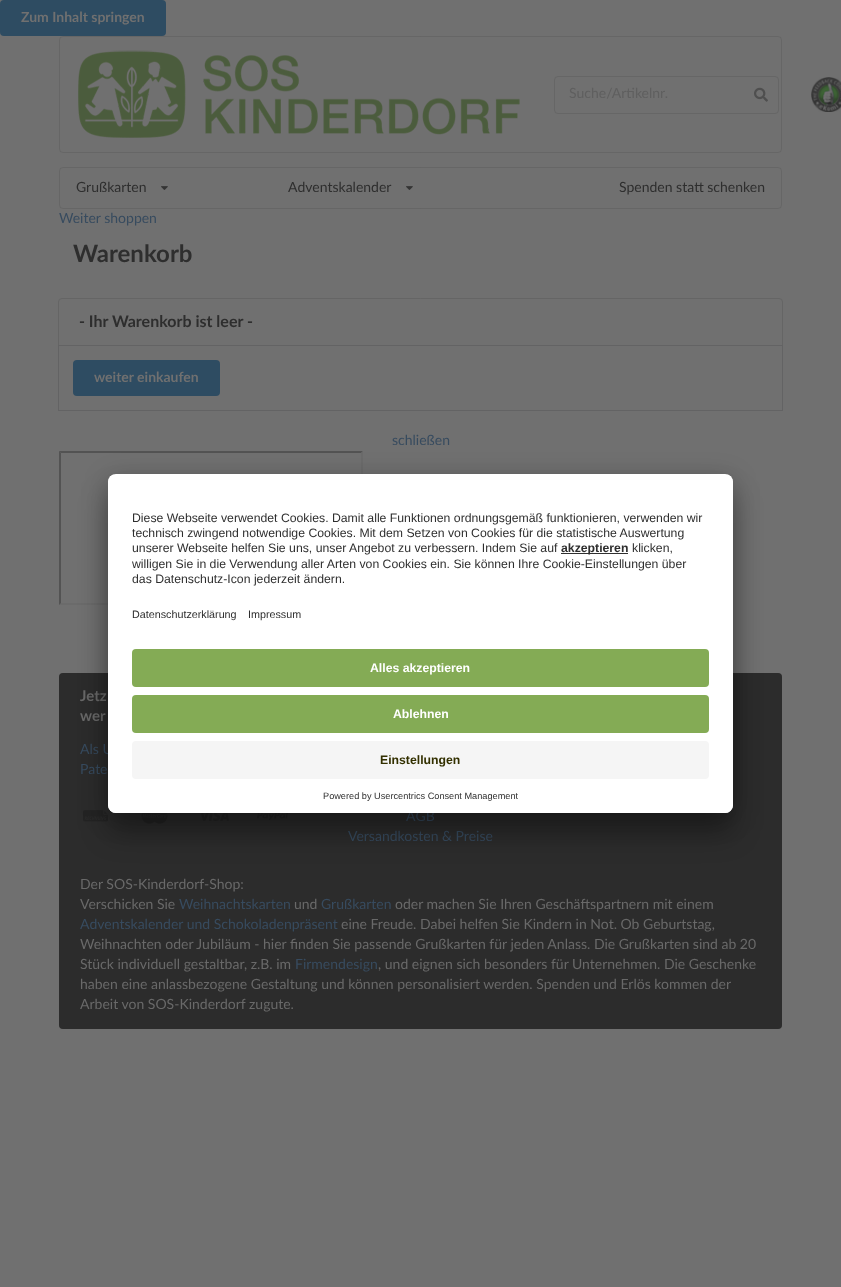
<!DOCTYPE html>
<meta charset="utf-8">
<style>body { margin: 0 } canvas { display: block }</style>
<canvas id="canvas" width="841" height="1287"></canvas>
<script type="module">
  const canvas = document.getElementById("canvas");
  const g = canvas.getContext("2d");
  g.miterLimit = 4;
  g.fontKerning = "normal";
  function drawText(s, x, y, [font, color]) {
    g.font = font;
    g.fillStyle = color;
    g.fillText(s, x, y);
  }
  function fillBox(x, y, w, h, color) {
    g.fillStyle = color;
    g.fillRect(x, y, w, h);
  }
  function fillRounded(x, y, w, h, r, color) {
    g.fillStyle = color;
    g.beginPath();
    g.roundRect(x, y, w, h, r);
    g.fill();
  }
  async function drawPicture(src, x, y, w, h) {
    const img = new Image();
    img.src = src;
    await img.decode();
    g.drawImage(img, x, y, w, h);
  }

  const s1 = ["bold 14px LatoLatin", "#707070"];
  const s2 = ["14px LatoLatin", "#5F5F5F"];
  const s3 = ["14px LatoLatin", "#2E2E2E"];
  const s4 = ["14px LatoLatin", "#374B5F"];
  const s5 = ["bold 24px LatoLatin", "#2E2E2E"];
  const s6 = ["bold 16px LatoLatin", "#2E2E2E"];
  const s7 = ["bold 15px LatoLatin", "#696969"];
  const s8 = ["14px LatoLatin", "#696969"];
  const s9 = ["12.25px Liberation Sans", "#2E2E2E"];
  const s10 = ["bold 12.25px Liberation Sans", "#2E2E2E"];
  const s11 = ["10.75px Liberation Sans", "#2E2E2E"];
  const s12 = ["bold 12.25px Liberation Sans", "#FFFFFF"];
  const s13 = ["bold 12.25px Liberation Sans", "#333000"];
  const s14 = ["9.2px Liberation Sans", "#2E2E2E"];

  fillBox(0, 0, 841, 1287, "#707070");
  fillRounded(0, 0, 166, 36, 4, "#2E4C62");
  drawText("Zum Inhalt springen", 21, 22, s1);
  g.beginPath();
  g.roundRect(59.5, 36.5, 722, 116, 3.5);
  g.strokeStyle = "rgba(46, 47, 47, 0.15)";
  g.stroke();
  await drawPicture("pic1.png", 78, 50, 442, 88);
  g.beginPath();
  g.roundRect(554.5, 76.5, 224, 37, 3.5);
  g.strokeStyle = "#666666";
  g.stroke();
  drawText("Suche/Artikelnr.", 569, 98, s2);
  await drawPicture("pic2.png", 754, 87, 14, 15);
  await drawPicture("pic3.png", 811, 77, 30, 35);
  g.beginPath();
  g.roundRect(59.5, 167.5, 722, 41, 3.5);
  g.strokeStyle = "rgba(46, 47, 47, 0.15)";
  g.stroke();
  drawText("Grußkarten", 76, 192, s3);
  await drawPicture("pic4.png", 161, 186, 7, 4);
  drawText("Adventskalender", 288, 192, s3);
  await drawPicture("pic4.png", 406, 186, 7, 4);
  drawText("Spenden statt schenken", 619, 192, s3);
  drawText("Weiter shoppen", 59, 223, s4);
  drawText("Warenkorb", 73, 262, s5);
  g.beginPath();
  g.roundRect(58.5, 298.5, 724, 47, [3.5, 3.5, 0, 0]);
  g.strokeStyle = "#656565";
  g.stroke();
  drawText("- Ihr Warenkorb ist leer -", 79, 327, s6);
  g.strokeStyle = "#636364";
  g.strokeRect(58.5, 345.5, 724, 65);
  fillRounded(73, 360, 147, 36, 4, "#2E4C62");
  drawText("weiter einkaufen", 94, 382, s1);
  drawText("schließen", 392, 445, s4);
  g.fillStyle = "#535353";
  g.beginPath();
  g.moveTo(59, 451);
  g.lineTo(363, 451);
  g.lineTo(361, 453);
  g.lineTo(61, 453);
  g.closePath();
  g.fill();
  g.fillStyle = "#6B6B6B";
  g.beginPath();
  g.moveTo(363, 451);
  g.lineTo(363, 605);
  g.lineTo(361, 603);
  g.lineTo(361, 453);
  g.closePath();
  g.fill();
  g.beginPath();
  g.moveTo(363, 605);
  g.lineTo(59, 605);
  g.lineTo(61, 603);
  g.lineTo(361, 603);
  g.closePath();
  g.fill();
  g.fillStyle = "#535353";
  g.beginPath();
  g.moveTo(59, 605);
  g.lineTo(59, 451);
  g.lineTo(61, 453);
  g.lineTo(61, 603);
  g.closePath();
  g.fill();
  fillRounded(59, 673, 723, 356, 4, "#2C2C2C");
  g.beginPath();
  g.roundRect(59.5, 673.5, 722, 355, 3.5);
  g.strokeStyle = "rgba(46, 47, 47, 0.22)";
  g.stroke();
  drawText("Jetz", 80, 701, s7);
  drawText("wer", 80, 721, s7);
  drawText("Als U", 80, 754, s4);
  drawText("Pate", 80, 774, s4);
  await drawPicture("pic5.png", 83, 810, 25, 12);
  await drawPicture("pic6.png", 141, 813, 27, 11);
  await drawPicture("pic7.png", 200, 813, 29, 8);
  await drawPicture("pic8.png", 257, 813, 31, 7);
  drawText("AGB", 406, 821, s4);
  drawText("Versandkosten & Preise", 348, 841, s4);
  drawText("Der SOS-Kinderdorf-Shop:", 80, 889, s8);
  drawText("Verschicken Sie", 80, 909, s8);
  drawText("Weihnachtskarten", 179, 909, s4);
  drawText("und", 294, 909, s8);
  drawText("Grußkarten", 321, 909, s4);
  drawText("oder machen Sie Ihren Geschäftspartnern mit einem", 395, 909, s8);
  drawText("Adventskalender und Schokoladenpräsent", 80, 929, s4);
  drawText("eine Freude. Dabei helfen Sie Kindern in Not. Ob Geburtstag,", 341, 929, s8);
  drawText("Weihnachten oder Jubiläum - hier finden Sie passende Grußkarten für jeden Anlass. Die Grußkarten sind ab 20", 80, 949, s8);
  drawText("Stück individuell gestaltbar, z.B. im", 80, 969, s8);
  drawText("Firmendesign", 295, 969, s4);
  drawText(", und eignen sich besonders für Unternehmen. Die Geschenke", 378, 969, s8);
  drawText("haben eine anlassbezogene Gestaltung und können personalisiert werden. Spenden und Erlös kommen der", 80, 989, s8);
  drawText("Arbeit von SOS-Kinderdorf zugute.", 80, 1009, s8);
  g.fillStyle = "rgba(0, 0, 0, 0.3)";
  g.filter = "blur(14px)";
  g.beginPath();
  g.roundRect(108, 494, 625, 339, 8);
  g.fill();
  g.filter = "none";
  g.fillStyle = "rgba(0, 0, 0, 0.22)";
  g.filter = "blur(13px)";
  g.beginPath();
  g.roundRect(108, 479, 625, 339, 8);
  g.fill();
  g.filter = "none";
  fillRounded(108, 474, 625, 339, 8, "#FFFFFF");
  g.save();
  g.beginPath();
  g.roundRect(108, 474, 625, 339, 8);
  g.clip();
  g.beginPath();
  g.roundRect(108, 474, 625, 163, [8, 8, 0, 0]);
  g.clip();
  fillBox(108, 475, 625, 162, "#FFFFFF");
  g.restore();
  drawText("Diese Webseite verwendet Cookies. Damit alle Funktionen ordnungsgemäß funktionieren, verwenden wir", 132, 522, s9);
  drawText("technisch zwingend notwendige Cookies. Mit dem Setzen von Cookies für die statistische Auswertung", 132, 537, s9);
  drawText("unserer Webseite helfen Sie uns, unser Angebot zu verbessern. Indem Sie auf", 132, 552, s9);
  fillBox(561, 553, 67, 1, "#303030");
  drawText("akzeptieren", 561, 552, s10);
  drawText("klicken,", 632, 552, s9);
  drawText("willigen Sie in die Verwendung aller Arten von Cookies ein. Sie können Ihre Cookie-Einstellungen über", 132, 568, s9);
  drawText("das Datenschutz-Icon jederzeit ändern.", 132, 583, s9);
  drawText("Datenschutzerklärung", 132, 618, s11);
  drawText("Impressum", 248, 618, s11);
  g.fillStyle = "#FFFFFF";
  g.beginPath();
  g.roundRect(108, 637, 625, 176, [0, 0, 8, 8]);
  g.fill();
  fillRounded(132, 649, 577, 38, 4, "#84AB55");
  drawText("Alles akzeptieren", 370, 672, s12);
  fillRounded(132, 695, 577, 38, 4, "#84AB55");
  drawText("Ablehnen", 393, 718, s12);
  fillRounded(132, 741, 577, 38, 4, "#F5F5F5");
  drawText("Einstellungen", 380, 764, s13);
  drawText("Powered by Usercentrics Consent Management", 323, 799, s14);
</script>
